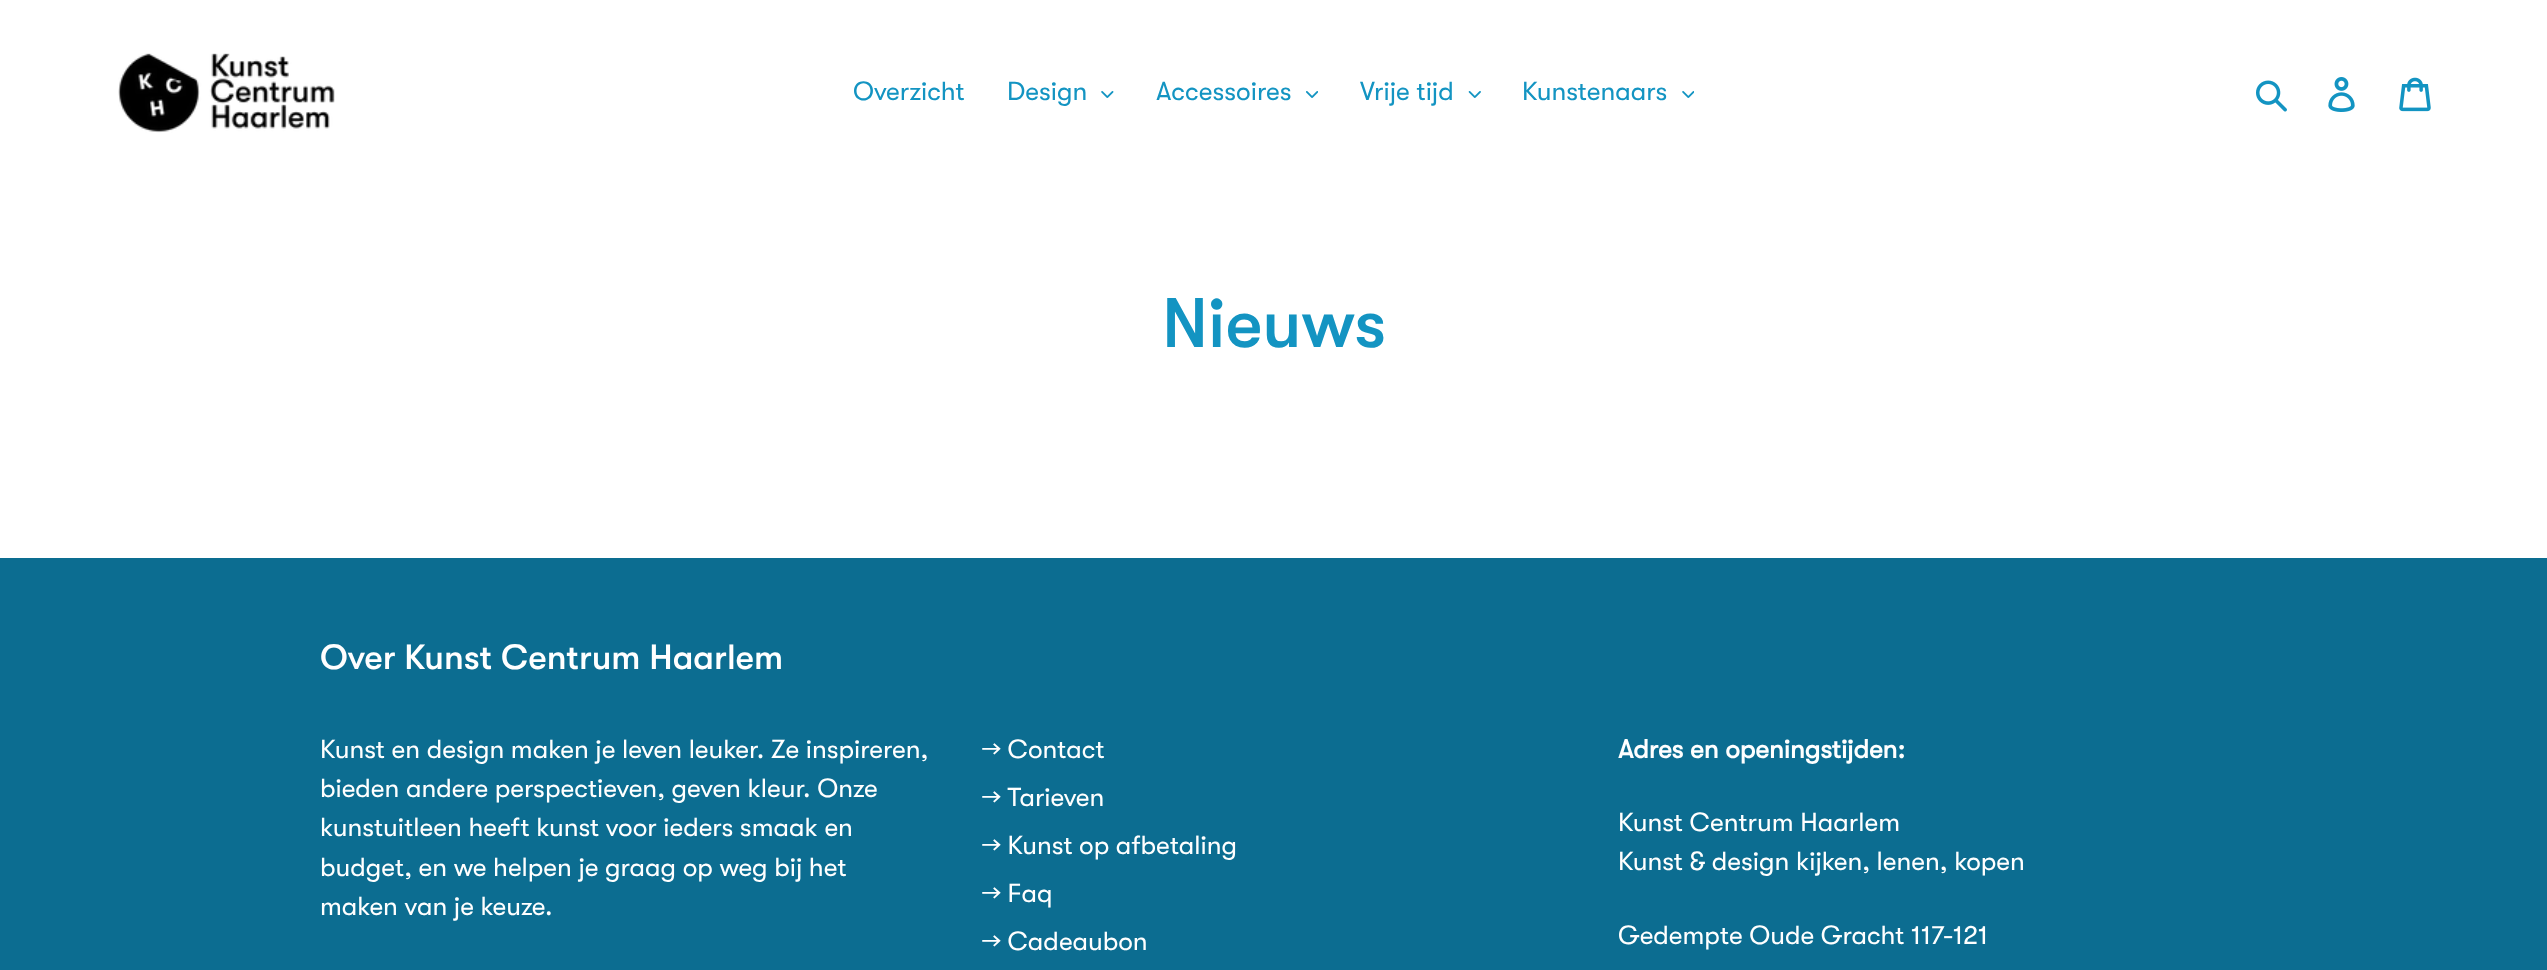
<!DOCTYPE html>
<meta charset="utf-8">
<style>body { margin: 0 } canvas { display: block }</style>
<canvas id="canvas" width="2547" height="970"></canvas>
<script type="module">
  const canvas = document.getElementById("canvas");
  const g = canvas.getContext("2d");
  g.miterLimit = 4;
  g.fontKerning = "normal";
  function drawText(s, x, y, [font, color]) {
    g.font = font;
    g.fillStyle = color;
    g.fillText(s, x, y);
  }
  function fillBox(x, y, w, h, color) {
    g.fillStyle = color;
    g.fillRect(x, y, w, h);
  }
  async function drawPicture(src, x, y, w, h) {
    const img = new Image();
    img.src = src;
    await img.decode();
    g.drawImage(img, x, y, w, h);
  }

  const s1 = ["26.25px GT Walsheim", "#1394C2"];
  const s2 = ["500 70px GT Walsheim", "#1394C2"];
  const s3 = ["500 35px GT Walsheim", "#FFFFFF"];
  const s4 = ["26.25px GT Walsheim", "#FFFFFF"];
  const s5 = ["bold 26.25px GT Walsheim", "#FFFFFF"];

  fillBox(0, 0, 2547, 970, "#FFFFFF");
  await drawPicture("pic1.png", 118, 53, 217, 80);
  drawText("Overzicht", 853, 100, s1);
  drawText("Design", 1007, 100, s1);
  await drawPicture("pic2.png", 1101, 91, 13, 7);
  drawText("Accessoires", 1156, 100, s1);
  await drawPicture("pic3.png", 1306, 91, 12, 7);
  drawText("Vrije tijd", 1360, 100, s1);
  await drawPicture("pic4.png", 1468, 91, 13, 7);
  drawText("Kunstenaars", 1522, 100, s1);
  await drawPicture("pic5.png", 1682, 91, 12, 7);
  await drawPicture("pic6.png", 2256, 80, 31, 32);
  await drawPicture("pic7.png", 2328, 77, 27, 35);
  await drawPicture("pic8.png", 2399, 77, 32, 35);
  drawText("Nieuws", 1162, 347, s2);
  fillBox(0, 558, 2547, 412, "#0C6D91");
  drawText("Over Kunst Centrum Haarlem", 320, 669, s3);
  drawText("Kunst en design maken je leven leuker. Ze inspireren,", 320, 758, s4);
  drawText("bieden andere perspectieven, geven kleur. Onze", 320, 797, s4);
  drawText("kunstuitleen heeft kunst voor ieders smaak en", 320, 836, s4);
  drawText("budget, en we helpen je graag op weg bij het", 320, 876, s4);
  drawText("maken van je keuze.", 320, 915, s4);
  drawText("→ Contact", 982, 758, s4);
  drawText("→ Tarieven", 982, 806, s4);
  drawText("→ Kunst op afbetaling", 982, 854, s4);
  drawText("→ Faq", 982, 902, s4);
  drawText("→ Cadeaubon", 982, 950, s4);
  drawText("Adres en openingstijden:", 1618, 758, s5);
  drawText("Kunst Centrum Haarlem", 1618, 831, s4);
  drawText("Kunst & design kijken, lenen, kopen", 1618, 870, s4);
  drawText("Gedempte Oude Gracht 117-121", 1618, 944, s4);
</script>
